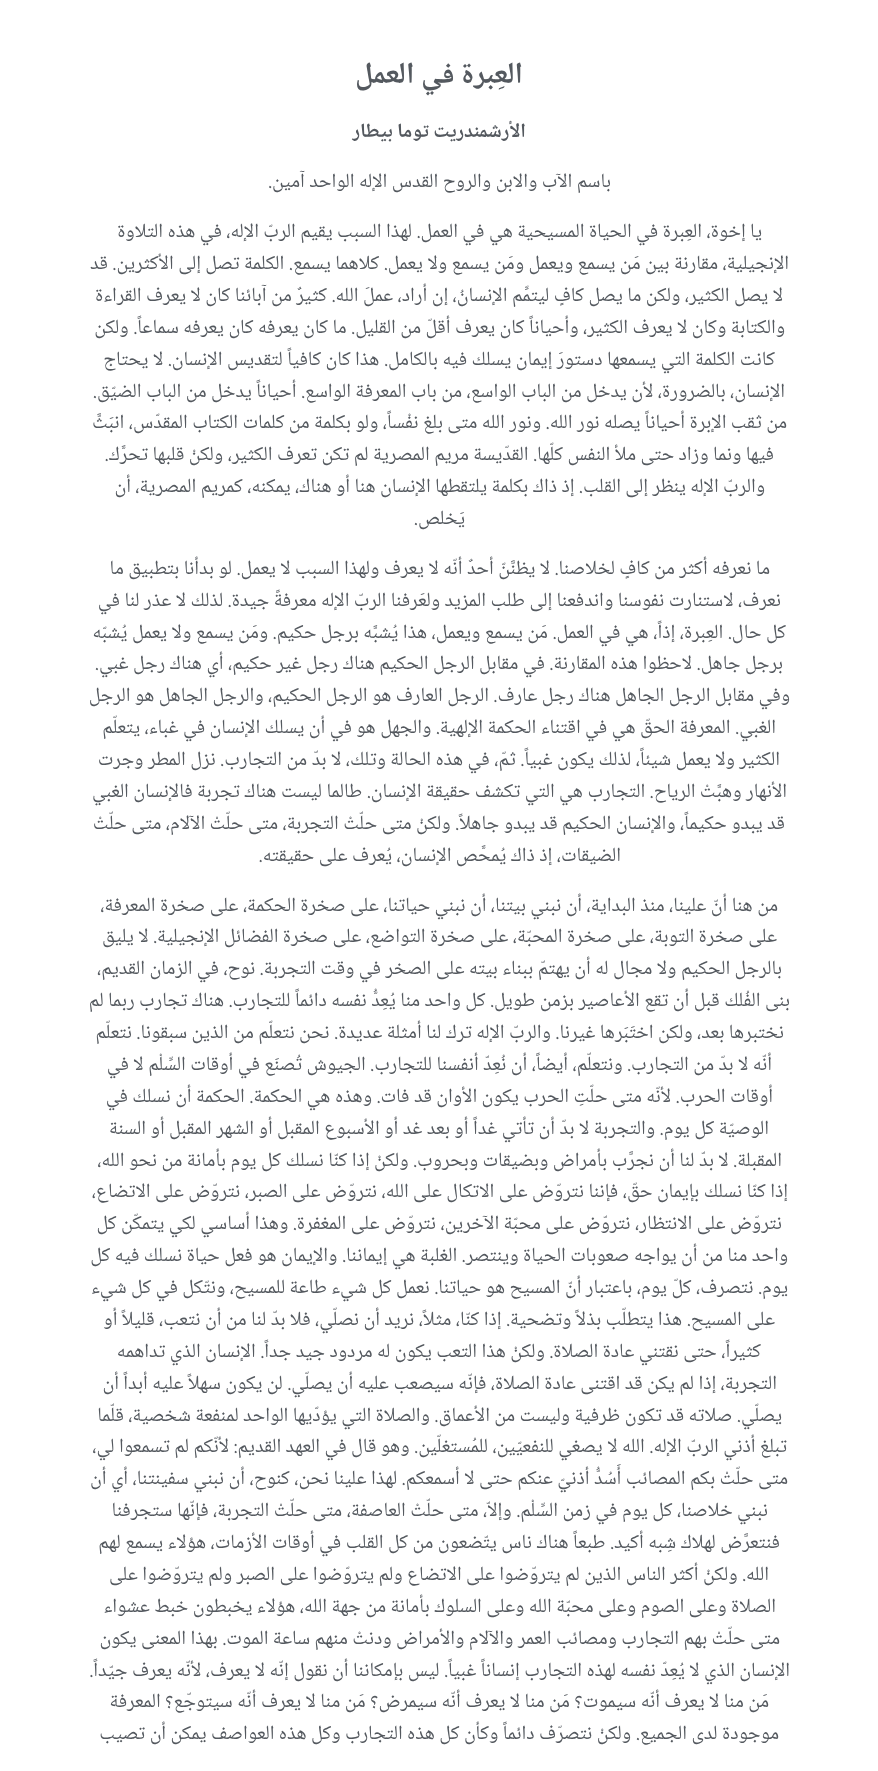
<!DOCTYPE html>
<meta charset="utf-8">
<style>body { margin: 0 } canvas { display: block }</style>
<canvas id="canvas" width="878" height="1771"></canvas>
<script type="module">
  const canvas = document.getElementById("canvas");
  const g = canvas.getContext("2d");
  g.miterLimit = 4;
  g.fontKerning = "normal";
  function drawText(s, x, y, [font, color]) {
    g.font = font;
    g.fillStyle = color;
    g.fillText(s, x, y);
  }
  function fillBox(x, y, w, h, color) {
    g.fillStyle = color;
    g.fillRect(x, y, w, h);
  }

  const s1 = ["bold 30px Noto Naskh Arabic", "#54595F"];
  const s2 = ["bold 20px Noto Naskh Arabic", "#54595F"];
  const s3 = ["20px Noto Naskh Arabic", "#54595F"];

  fillBox(0, 0, 878, 1771, "#FFFFFF");
  g.direction = "rtl";
  drawText("العِبرة في العمل", 523, 83, s1);
  drawText("الأرشمندريت توما بيطار", 526, 137, s2);
  drawText("باسم الآب والابن والروح القدس الإله الواحد آمين.", 611, 187, s3);
  drawText("يا إخوة، العِبرة في الحياة المسيحية هي في العمل. لهذا السبب يقيم الربّ الإله، في هذه التلاوة", 762, 237, s3);
  drawText("الإنجيلية، مقارنة بين مَن يسمع ويعمل ومَن يسمع ولا يعمل. كلاهما يسمع. الكلمة تصل إلى الأكثرين. قد", 789, 269, s3);
  drawText("لا يصل الكثير، ولكن ما يصل كافٍ ليتمِّم الإنسانُ، إن أراد، عملَ الله. كثيرٌ من آبائنا كان لا يعرف القراءة", 783, 301, s3);
  drawText("والكتابة وكان لا يعرف الكثير، وأحياناً كان يعرف أقلّ من القليل. ما كان يعرفه كان يعرفه سماعاً. ولكن", 785, 333, s3);
  drawText("كانت الكلمة التي يسمعها دستورَ إيمان يسلك فيه بالكامل. هذا كان كافياً لتقديس الإنسان. لا يحتاج", 775, 365, s3);
  drawText("الإنسان، بالضرورة، لأن يدخل من الباب الواسع، من باب المعرفة الواسع. أحياناً يدخل من الباب الضيّق.", 785, 397, s3);
  drawText("من ثقب الإبرة أحياناً يصله نور الله. ونور الله متى بلغ نفْساً، ولو بكلمة من كلمات الكتاب المقدّس، انبَثَّ", 787, 428, s3);
  drawText("فيها ونما وزاد حتى ملأ النفس كلّها. القدّيسة مريم المصرية لم تكن تعرف الكثير، ولكنْ قلبها تحرَّك.", 774, 460, s3);
  drawText("والربّ الإله ينظر إلى القلب. إذ ذاك بكلمة يلتقطها الإنسان هنا أو هناك، يمكنه، كمريم المصرية، أن", 765, 492, s3);
  drawText("يَخلص.", 465, 524, s3);
  drawText("ما نعرفه أكثر من كافٍ لخلاصنا. لا يظنَّنّ أحدٌ أنّه لا يعرف ولهذا السبب لا يعمل. لو بدأنا بتطبيق ما", 770, 574, s3);
  drawText("نعرف، لاستنارت نفوسنا واندفعنا إلى طلب المزيد ولعَرفنا الربّ الإله معرفةً جيدة. لذلك لا عذر لنا في", 781, 606, s3);
  drawText("كل حال. العِبرة، إذاً، هي في العمل. مَن يسمع ويعمل، هذا يُشبَّه برجل حكيم. ومَن يسمع ولا يعمل يُشبّه", 786, 638, s3);
  drawText("برجل جاهل. لاحظوا هذه المقارنة. في مقابل الرجل الحكيم هناك رجل غير حكيم، أي هناك رجل غبي.", 783, 669, s3);
  drawText("وفي مقابل الرجل الجاهل هناك رجل عارف. الرجل العارف هو الرجل الحكيم، والرجل الجاهل هو الرجل", 790, 701, s3);
  drawText("الغبي. المعرفة الحقّ هي في اقتناء الحكمة الإلهية. والجهل هو في أن يسلك الإنسان في غباء، يتعلّم", 776, 733, s3);
  drawText("الكثير ولا يعمل شيئاً، لذلك يكون غبياً. ثمّ، في هذه الحالة وتلك، لا بدّ من التجارب. نزل المطر وجرت", 780, 765, s3);
  drawText("الأنهار وهبَّتْ الرياح. التجارب هي التي تكشف حقيقة الإنسان. طالما ليست هناك تجربة فالإنسان الغبي", 787, 797, s3);
  drawText("قد يبدو حكيماً، والإنسان الحكيم قد يبدو جاهلاً. ولكنْ متى حلّتْ التجربة، متى حلّتْ الآلام، متى حلّتْ", 785, 829, s3);
  drawText("الضيقات، إذ ذاك يُمحَّص الإنسان، يُعرف على حقيقته.", 621, 861, s3);
  drawText("من هنا أنّ علينا، منذ البداية، أن نبني بيتنا، أن نبني حياتنا، على صخرة الحكمة، على صخرة المعرفة،", 778, 911, s3);
  drawText("على صخرة التوبة، على صخرة المحبّة، على صخرة التواضع، على صخرة الفضائل الإنجيلية. لا يليق", 777, 942, s3);
  drawText("بالرجل الحكيم ولا مجال له أن يهتمّ ببناء بيته على الصخر في وقت التجربة. نوح، في الزمان القديم،", 782, 974, s3);
  drawText("بنى الفُلك قبل أن تقع الأعاصير بزمن طويل. كل واحد منا يُعِدُّ نفسه دائماً للتجارب. هناك تجارب ربما لم", 790, 1006, s3);
  drawText("نختبرها بعد، ولكن اختَبَرها غيرنا. والربّ الإله ترك لنا أمثلة عديدة. نحن نتعلّم من الذين سبقونا. نتعلّم", 784, 1038, s3);
  drawText("أنّه لا بدّ من التجارب. ونتعلّم، أيضاً، أن نُعِدّ أنفسنا للتجارب. الجيوش تُصنَع في أوقات السِّلْم لا في", 772, 1070, s3);
  drawText("أوقات الحرب. لأنّه متى حلّتِ الحرب يكون الأوان قد فات. وهذه هي الحكمة. الحكمة أن نسلك في", 773, 1102, s3);
  drawText("الوصيّة كل يوم. والتجربة لا بدّ أن تأتي غداً أو بعد غد أو الأسبوع المقبل أو الشهر المقبل أو السنة", 769, 1134, s3);
  drawText("المقبلة. لا بدّ لنا أن نجرَّب بأمراض وبضيقات وبحروب. ولكنْ إذا كنّا نسلك كل يوم بأمانة من نحو الله،", 782, 1166, s3);
  drawText("إذا كنّا نسلك بإيمان حقّ، فإننا نتروّض على الاتكال على الله، نتروّض على الصبر، نتروّض على الاتضاع،", 788, 1197, s3);
  drawText("نتروّض على الانتظار، نتروّض على محبّة الآخرين، نتروّض على المغفرة. وهذا أساسي لكي يتمكّن كل", 782, 1229, s3);
  drawText("واحد منا من أن يواجه صعوبات الحياة وينتصر. الغلبة هي إيماننا. والإيمان هو فعل حياة نسلك فيه كل", 788, 1261, s3);
  drawText("يوم. نتصرف، كلّ يوم، باعتبار أنّ المسيح هو حياتنا. نعمل كل شيء طاعة للمسيح، ونتّكل في كل شيء", 788, 1293, s3);
  drawText("على المسيح. هذا يتطلّب بذلاً وتضحية. إذا كنّا، مثلاً، نريد أن نصلّي، فلا بدّ لنا من أن نتعب، قليلاً أو", 775, 1325, s3);
  drawText("كثيراً، حتى نقتني عادة الصلاة. ولكنْ هذا التعب يكون له مردود جيد جداً. الإنسان الذي تداهمه", 761, 1357, s3);
  drawText("التجربة، إذا لم يكن قد اقتنى عادة الصلاة، فإنّه سيصعب عليه أن يصلّي. لن يكون سهلاً عليه أبداً أن", 777, 1389, s3);
  drawText("يصلّي. صلاته قد تكون ظرفية وليست من الأعماق. والصلاة التي يؤدّيها الواحد لمنفعة شخصية، قلّما", 782, 1421, s3);
  drawText("تبلغ أذني الربّ الإله. الله لا يصغي للنفعيّين، للمُستغلّين. وهو قال في العهد القديم: لأنّكم لم تسمعوا لي،", 787, 1452, s3);
  drawText("متى حلّتْ بكم المصائب أَسُدُّ أذنيّ عنكم حتى لا أسمعكم. لهذا علينا نحن، كنوح، أن نبني سفينتنا، أي أن", 788, 1484, s3);
  drawText("نبني خلاصنا، كل يوم في زمن السِّلْم. وإلاّ، متى حلّتْ العاصفة، متى حلّتْ التجربة، فإنّها ستجرفنا", 768, 1516, s3);
  drawText("فنتعرَّض لهلاك شِبه أكيد. طبعاً هناك ناس يتّضعون من كل القلب في أوقات الأزمات، هؤلاء يسمع لهم", 780, 1548, s3);
  drawText("الله. ولكنْ أكثر الناس الذين لم يتروّضوا على الاتضاع ولم يتروّضوا على الصبر ولم يتروّضوا على", 769, 1580, s3);
  drawText("الصلاة وعلى الصوم وعلى محبّة الله وعلى السلوك بأمانة من جهة الله، هؤلاء يخبطون خبط عشواء", 776, 1612, s3);
  drawText("متى حلّتْ بهم التجارب ومصائب العمر والآلام والأمراض ودنتْ منهم ساعة الموت. بهذا المعنى يكون", 780, 1644, s3);
  drawText("الإنسان الذي لا يُعِدّ نفسه لهذه التجارب إنساناً غبياً. ليس بإمكاننا أن نقول إنّه لا يعرف، لأنّه يعرف جيّداً.", 790, 1676, s3);
  drawText("مَن منا لا يعرف أنّه سيموت؟ مَن منا لا يعرف أنّه سيمرض؟ مَن منا لا يعرف أنّه سيتوجّع؟ المعرفة", 769, 1707, s3);
  drawText("موجودة لدى الجميع. ولكنْ نتصرّف دائماً وكأن كل هذه التجارب وكل هذه العواصف يمكن أن تصيب", 779, 1739, s3);
</script>
